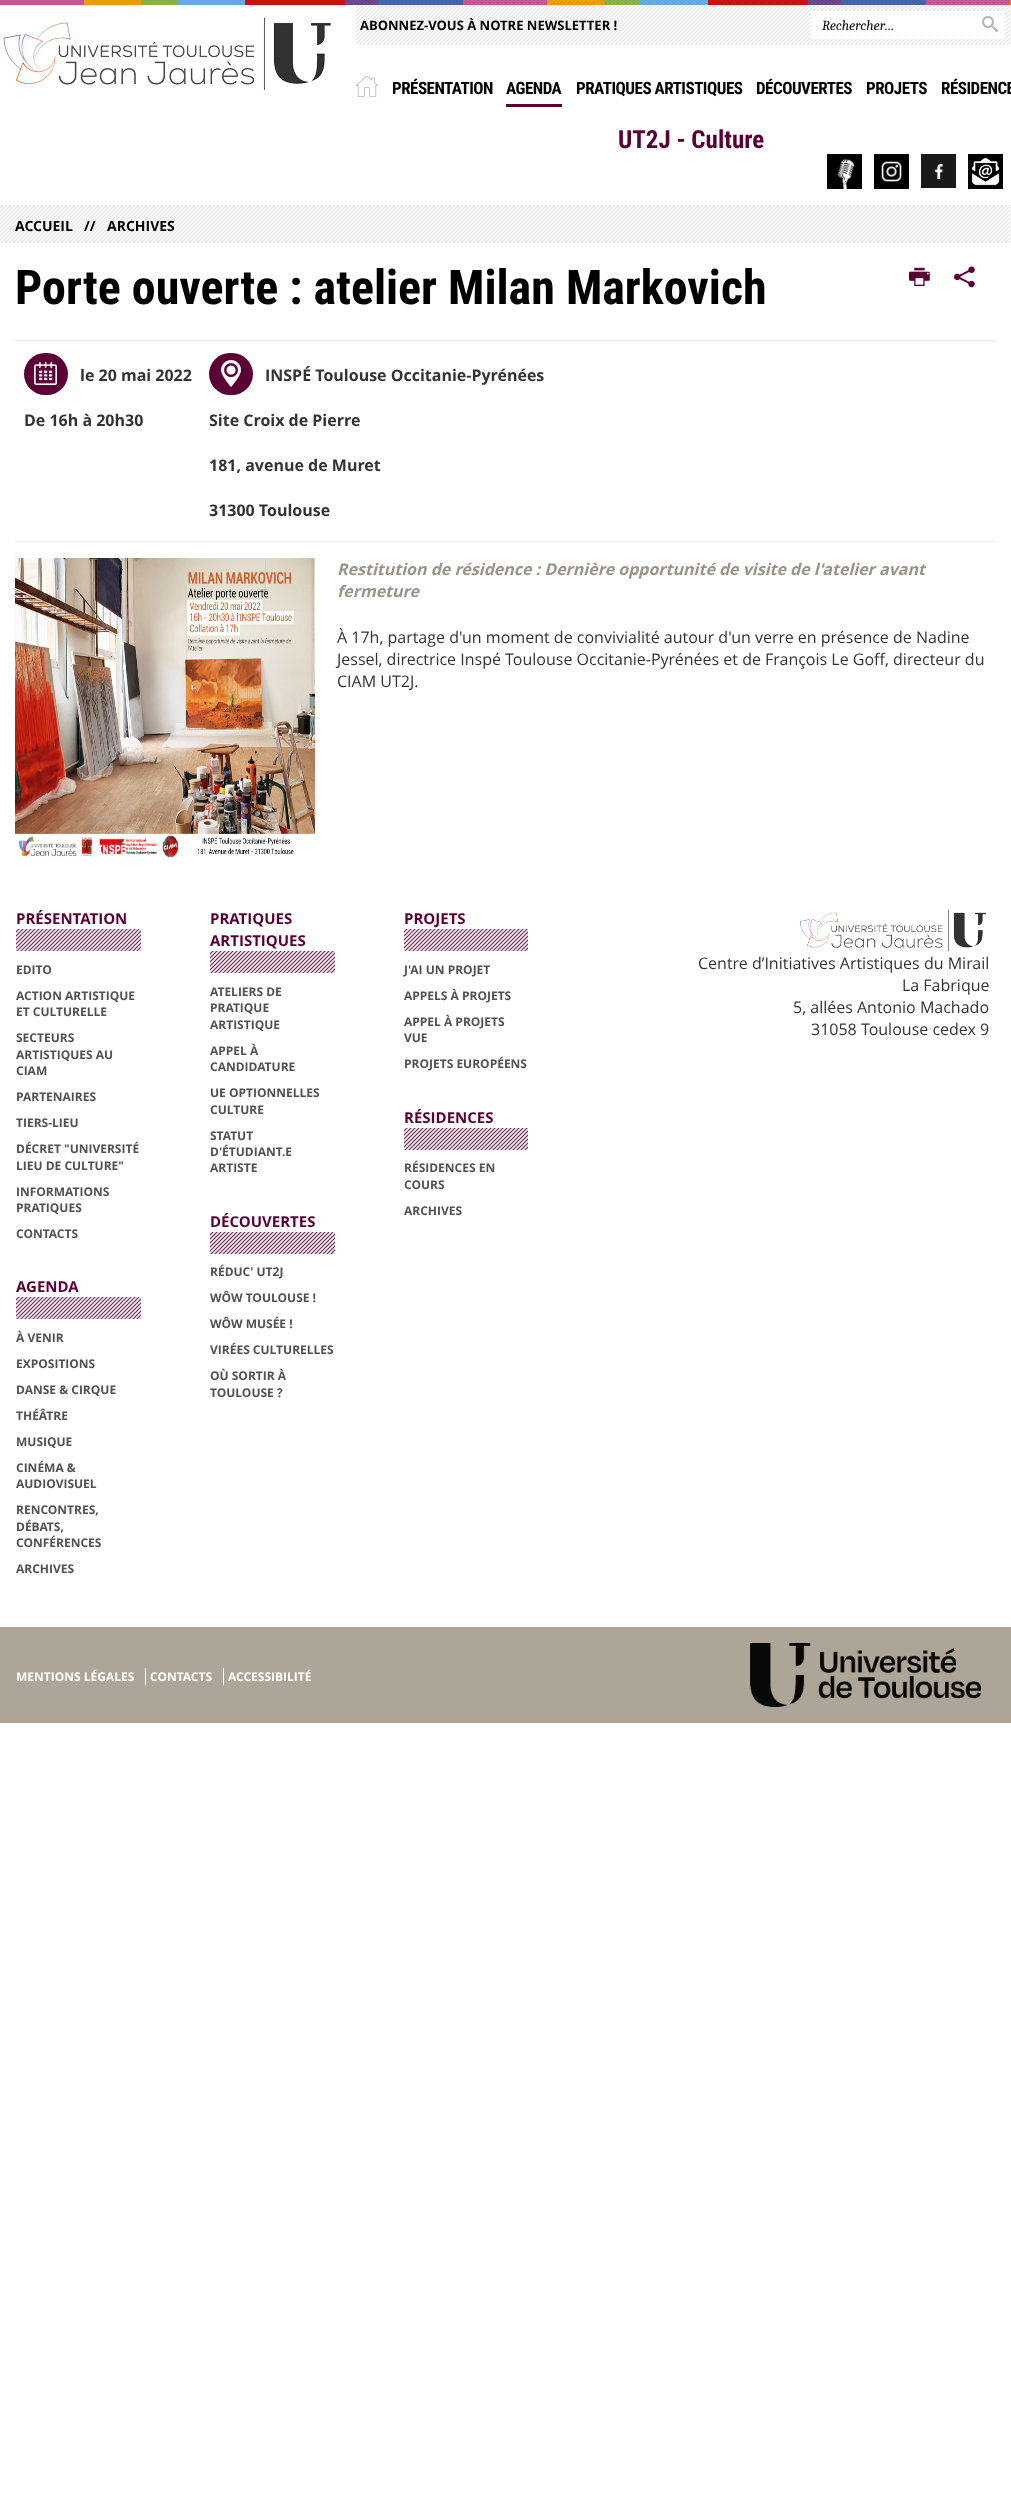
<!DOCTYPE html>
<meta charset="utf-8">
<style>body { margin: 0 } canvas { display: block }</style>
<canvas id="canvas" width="1011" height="2509"></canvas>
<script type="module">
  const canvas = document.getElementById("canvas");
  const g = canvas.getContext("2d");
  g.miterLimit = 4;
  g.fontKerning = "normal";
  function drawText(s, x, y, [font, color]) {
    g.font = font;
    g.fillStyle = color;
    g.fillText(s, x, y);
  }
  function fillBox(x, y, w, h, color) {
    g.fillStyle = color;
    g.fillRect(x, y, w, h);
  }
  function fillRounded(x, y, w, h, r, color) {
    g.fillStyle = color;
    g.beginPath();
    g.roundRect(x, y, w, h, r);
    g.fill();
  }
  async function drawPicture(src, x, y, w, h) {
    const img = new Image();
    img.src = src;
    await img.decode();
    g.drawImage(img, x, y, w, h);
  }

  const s1 = ["bold 13px Open Sans", "#000000"];
  const s2 = ["italic 14px Caladea", "#000000"];
  const s3 = ["bold 17px Roboto Condensed", "#000000"];
  const s4 = ["bold 25px Roboto Condensed", "#5A0035"];
  const s5 = ["bold 14px Open Sans", "#000000"];
  const s6 = ["bold 48px Roboto Condensed", "#000000"];
  const s7 = ["bold 16px Open Sans", "#333333"];
  const s8 = ["italic bold 16px Open Sans", "#999388"];
  const s9 = ["16px Open Sans", "#333333"];
  const s10 = ["bold 15px Open Sans", "#5A0035"];
  const s11 = ["bold 12px Open Sans", "#525151"];
  const s12 = ["bold 12px Open Sans", "#FFFFFF"];

  fillBox(0, 0, 1011, 2509, "#FFFFFF");
  await drawPicture("pic1.png", 0, 0, 1011, 5);
  await drawPicture("pic2.png", 3, 17, 328, 73);
  fillBox(356, 5, 655, 40, "#E5E5E5");
  await drawPicture("pic3.png", 356, 5, 655, 40);
  drawText("ABONNEZ-VOUS À NOTRE NEWSLETTER !", 360, 30, s1);
  fillBox(811, 11, 194, 28, "#FFFFFF");
  drawText("Rechercher…", 822, 30, s2);
  await drawPicture("pic4.png", 982, 16, 16, 16);
  await drawPicture("pic5.png", 356, 76, 22, 21);
  g.letterSpacing = "-0.5px";
  drawText("PRÉSENTATION", 392, 94, s3);
  fillBox(506, 104, 56, 3, "#5A0035");
  drawText("AGENDA", 506, 94, s3);
  drawText("PRATIQUES ARTISTIQUES", 576, 94, s3);
  drawText("DÉCOUVERTES", 756, 94, s3);
  drawText("PROJETS", 866, 94, s3);
  drawText("RÉSIDENCE", 941, 94, s3);
  g.letterSpacing = "0px";
  drawText("UT2J - Culture", 618, 148, s4);
  await drawPicture("pic6.png", 827, 154, 35, 35);
  await drawPicture("pic7.png", 874, 154, 35, 35);
  await drawPicture("pic8.png", 921, 154, 35, 34);
  await drawPicture("pic9.png", 968, 154, 35, 35);
  fillBox(0, 205, 1011, 38, "#E5E5E5");
  await drawPicture("pic10.png", 0, 205, 1011, 38);
  drawText("ACCUEIL", 15, 231, s5);
  drawText("//", 84, 231, s5);
  drawText("ARCHIVES", 107, 231, s5);
  drawText("Porte ouverte : atelier Milan Markovich", 15, 304, s6);
  await drawPicture("pic11.png", 909, 267, 21, 19);
  await drawPicture("pic12.png", 954, 266, 21, 22);
  fillBox(15, 340, 981, 1, "#F1ECE8");
  fillBox(15, 541, 981, 1, "#F1ECE8");
  fillRounded(24, 353, 44, 42, 21, "#5A0035");
  await drawPicture("pic13.png", 34, 362, 23, 23);
  drawText("le 20 mai 2022", 80, 381, s7);
  drawText("De 16h à 20h30", 24, 426, s7);
  fillRounded(209, 353, 44, 42, 21, "#5A0035");
  await drawPicture("pic14.png", 221, 360, 20, 27);
  drawText("INSPÉ Toulouse Occitanie-Pyrénées", 265, 381, s7);
  drawText("Site Croix de Pierre", 209, 426, s7);
  drawText("181, avenue de Muret", 209, 471, s7);
  drawText("31300 Toulouse", 209, 516, s7);
  await drawPicture("pic15.png", 15, 558, 300, 300);
  drawText("Restitution de résidence : Dernière opportunité de visite de l'atelier avant", 337, 575, s8);
  drawText("fermeture", 337, 597, s8);
  drawText("À 17h, partage d'un moment de convivialité autour d'un verre en présence de Nadine", 337, 643, s9);
  drawText("Jessel, directrice Inspé Toulouse Occitanie-Pyrénées et de François Le Goff, directeur du", 337, 665, s9);
  drawText("CIAM UT2J.", 337, 687, s9);
  drawText("PRÉSENTATION", 16, 924, s10);
  fillBox(16, 929, 125, 22, "#7B335D");
  await drawPicture("pic16.png", 16, 929, 125, 22);
  drawText("EDITO", 16, 974, s11);
  drawText("ACTION ARTISTIQUE", 16, 1000, s11);
  drawText("ET CULTURELLE", 16, 1016, s11);
  drawText("SECTEURS", 16, 1042, s11);
  drawText("ARTISTIQUES AU", 16, 1059, s11);
  drawText("CIAM", 16, 1075, s11);
  drawText("PARTENAIRES", 16, 1101, s11);
  drawText("TIERS-LIEU", 16, 1127, s11);
  drawText("DÉCRET \"UNIVERSITÉ", 16, 1153, s11);
  drawText("LIEU DE CULTURE\"", 16, 1170, s11);
  drawText("INFORMATIONS", 16, 1196, s11);
  drawText("PRATIQUES", 16, 1212, s11);
  drawText("CONTACTS", 16, 1238, s11);
  drawText("AGENDA", 16, 1292, s10);
  fillBox(16, 1297, 125, 22, "#7B335D");
  await drawPicture("pic16.png", 16, 1297, 125, 22);
  drawText("À VENIR", 16, 1342, s11);
  drawText("EXPOSITIONS", 16, 1368, s11);
  drawText("DANSE & CIRQUE", 16, 1394, s11);
  drawText("THÉÂTRE", 16, 1420, s11);
  drawText("MUSIQUE", 16, 1446, s11);
  drawText("CINÉMA &", 16, 1472, s11);
  drawText("AUDIOVISUEL", 16, 1488, s11);
  drawText("RENCONTRES,", 16, 1514, s11);
  drawText("DÉBATS,", 16, 1531, s11);
  drawText("CONFÉRENCES", 16, 1547, s11);
  drawText("ARCHIVES", 16, 1573, s11);
  drawText("PRATIQUES", 210, 924, s10);
  drawText("ARTISTIQUES", 210, 946, s10);
  fillBox(210, 951, 125, 22, "#7B335D");
  await drawPicture("pic16.png", 210, 951, 125, 22);
  drawText("ATELIERS DE", 210, 996, s11);
  drawText("PRATIQUE", 210, 1012, s11);
  drawText("ARTISTIQUE", 210, 1029, s11);
  drawText("APPEL À", 210, 1055, s11);
  drawText("CANDIDATURE", 210, 1071, s11);
  drawText("UE OPTIONNELLES", 210, 1097, s11);
  drawText("CULTURE", 210, 1114, s11);
  drawText("STATUT", 210, 1140, s11);
  drawText("D'ÉTUDIANT.E", 210, 1156, s11);
  drawText("ARTISTE", 210, 1172, s11);
  drawText("DÉCOUVERTES", 210, 1227, s10);
  fillBox(210, 1232, 125, 22, "#7B335D");
  await drawPicture("pic16.png", 210, 1232, 125, 22);
  drawText("RÉDUC' UT2J", 210, 1276, s11);
  drawText("WÔW TOULOUSE !", 210, 1302, s11);
  drawText("WÔW MUSÉE !", 210, 1328, s11);
  drawText("VIRÉES CULTURELLES", 210, 1354, s11);
  drawText("OÙ SORTIR À", 210, 1380, s11);
  drawText("TOULOUSE ?", 210, 1397, s11);
  drawText("PROJETS", 404, 924, s10);
  fillBox(404, 929, 124, 22, "#7B335D");
  await drawPicture("pic17.png", 404, 929, 124, 22);
  drawText("J'AI UN PROJET", 404, 974, s11);
  drawText("APPELS À PROJETS", 404, 1000, s11);
  drawText("APPEL À PROJETS", 404, 1026, s11);
  drawText("VUE", 404, 1042, s11);
  drawText("PROJETS EUROPÉENS", 404, 1068, s11);
  drawText("RÉSIDENCES", 404, 1123, s10);
  fillBox(404, 1128, 124, 22, "#7B335D");
  await drawPicture("pic17.png", 404, 1128, 124, 22);
  drawText("RÉSIDENCES EN", 404, 1172, s11);
  drawText("COURS", 404, 1189, s11);
  drawText("ARCHIVES", 404, 1215, s11);
  await drawPicture("pic18.png", 799, 909, 187, 42);
  drawText("Centre d’Initiatives Artistiques du Mirail", 698, 969, s9);
  drawText("La Fabrique", 902, 991, s9);
  drawText("5, allées Antonio Machado", 793, 1013, s9);
  drawText("31058 Toulouse cedex 9", 811, 1035, s9);
  fillBox(0, 1627, 1011, 96, "#ADA598");
  fillBox(145, 1668, 1, 17, "#FFFFFF");
  drawText("MENTIONS LÉGALES", 16, 1681, s12);
  fillBox(223, 1668, 1, 17, "#FFFFFF");
  drawText("CONTACTS", 150, 1681, s12);
  drawText("ACCESSIBILITÉ", 228, 1681, s12);
  await drawPicture("pic19.png", 750, 1643, 231, 64);
</script>
